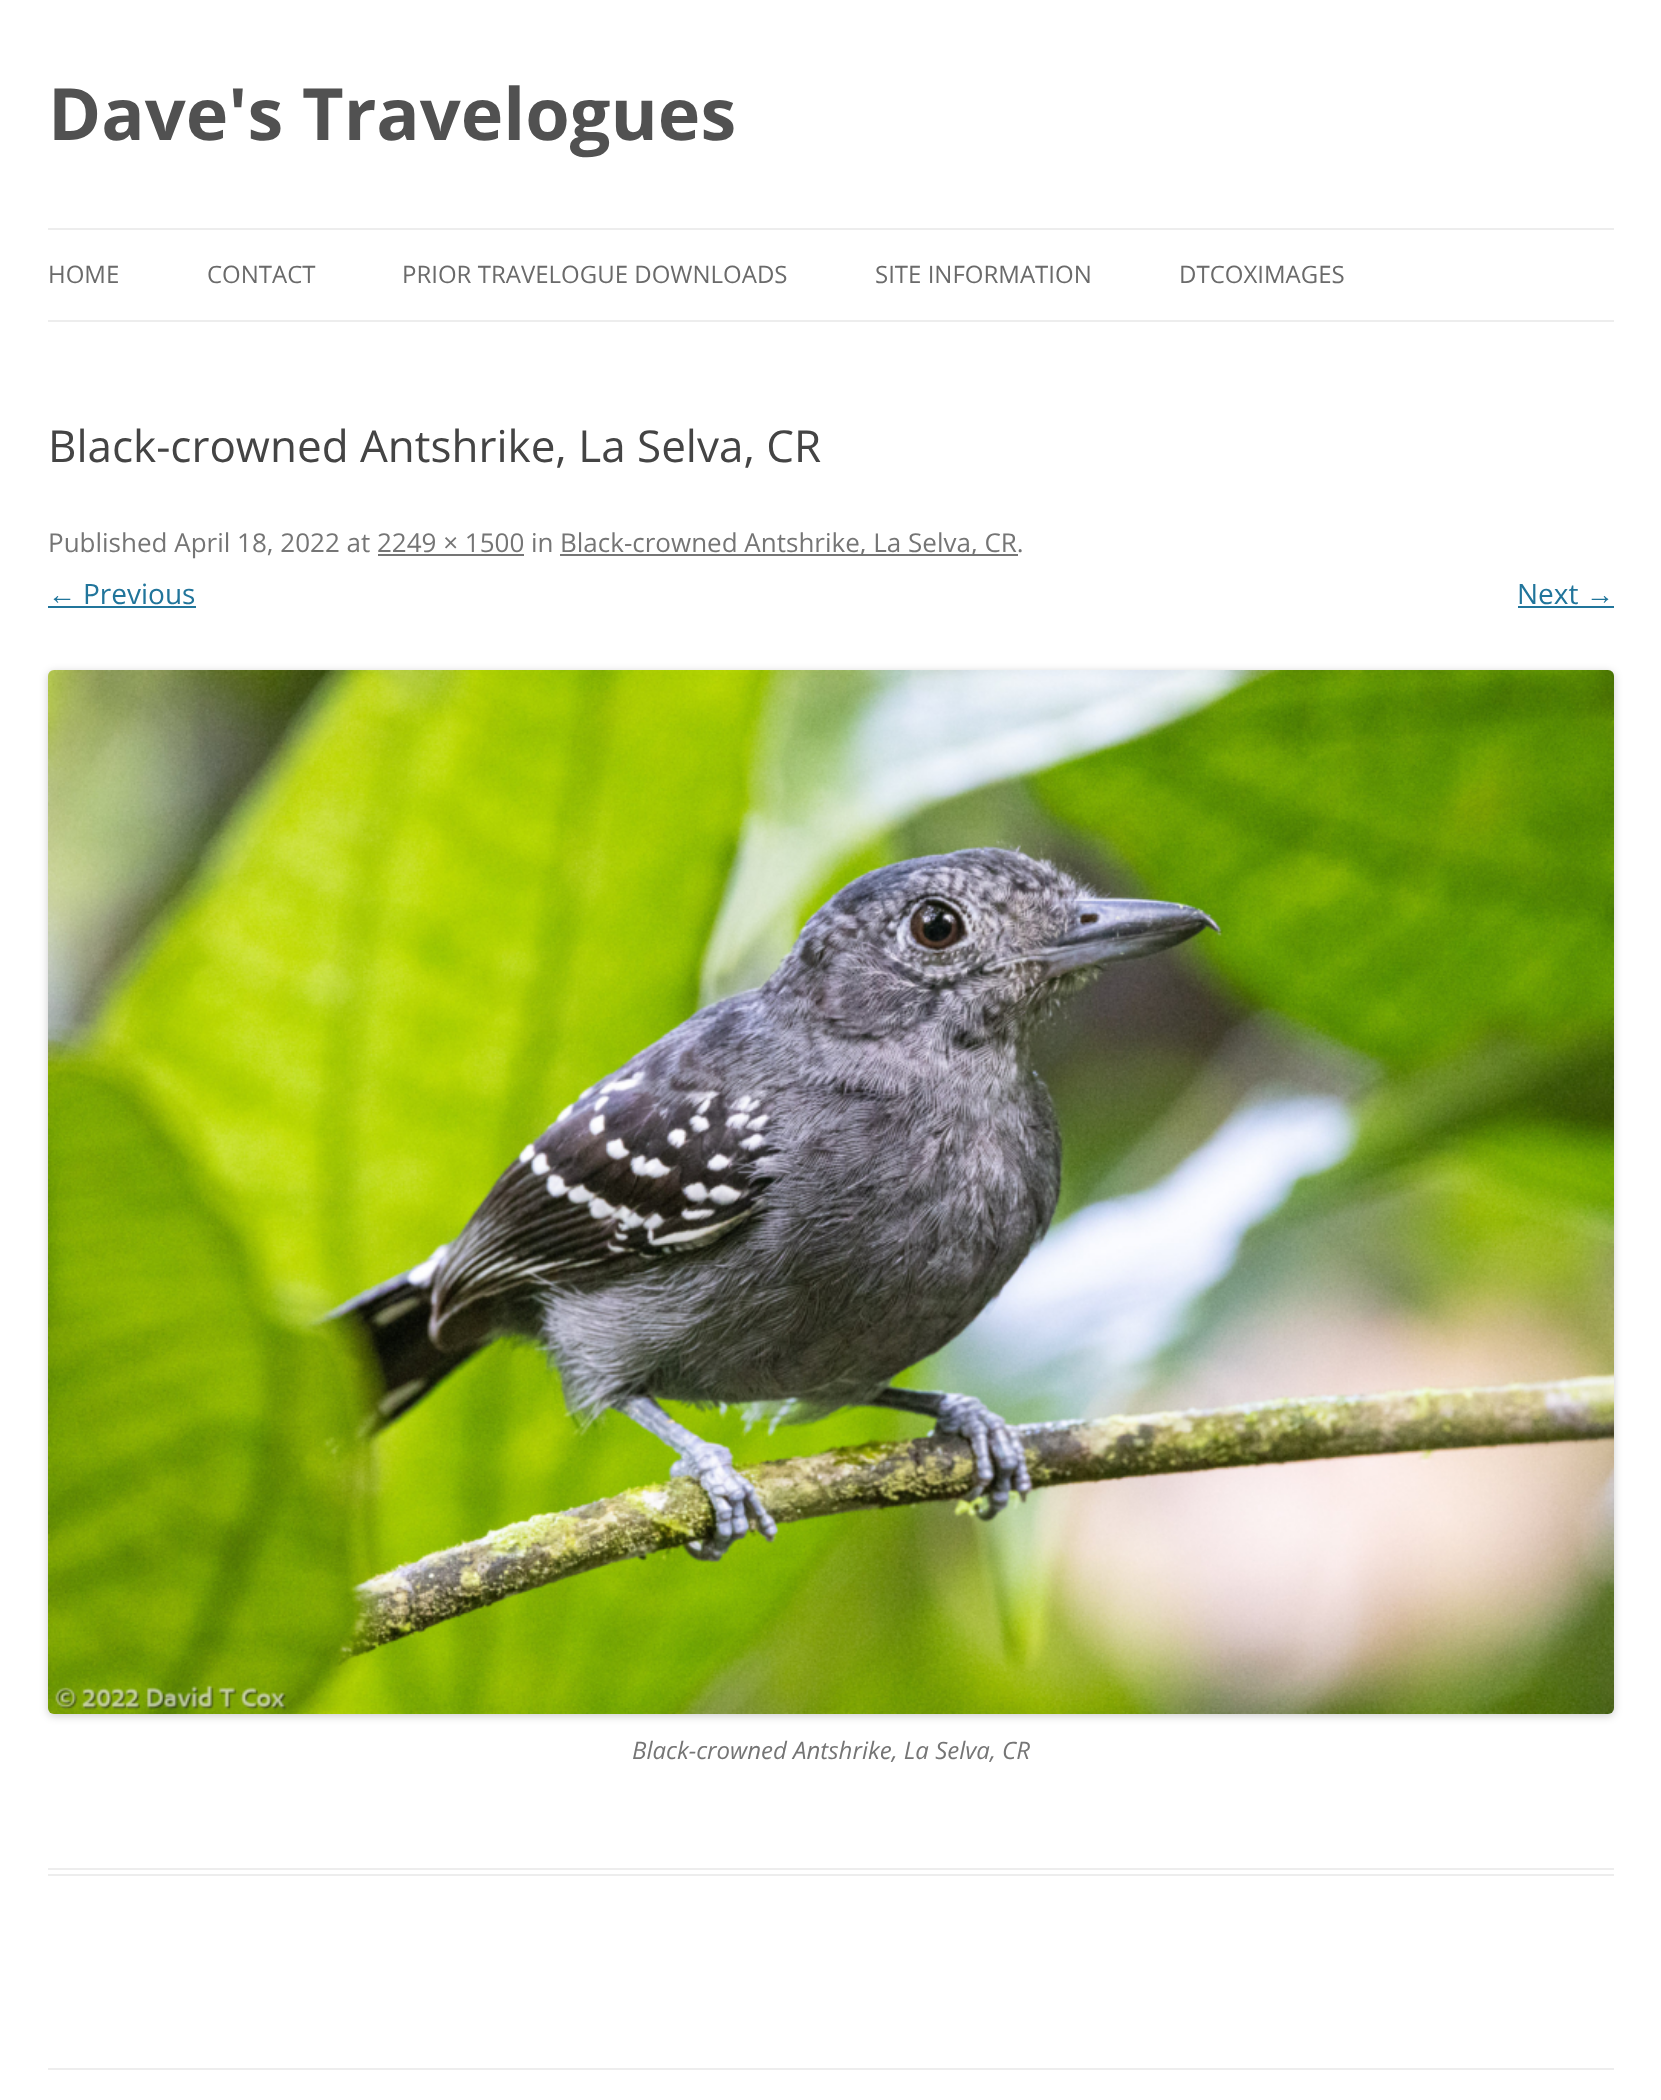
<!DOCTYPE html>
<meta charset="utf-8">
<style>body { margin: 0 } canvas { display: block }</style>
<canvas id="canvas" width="1661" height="2100"></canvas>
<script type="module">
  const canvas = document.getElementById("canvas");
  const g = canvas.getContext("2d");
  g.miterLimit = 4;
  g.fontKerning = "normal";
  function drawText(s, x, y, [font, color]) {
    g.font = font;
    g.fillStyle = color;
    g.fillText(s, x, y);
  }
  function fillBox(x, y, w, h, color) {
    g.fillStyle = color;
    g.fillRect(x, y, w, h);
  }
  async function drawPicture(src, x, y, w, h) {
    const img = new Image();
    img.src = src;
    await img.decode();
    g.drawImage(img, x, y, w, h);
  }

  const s1 = ["bold 72px Open Sans", "#515151"];
  const s2 = ["24px Open Sans", "#6A6A6A"];
  const s3 = ["44px Open Sans", "#444444"];
  const s4 = ["26px Open Sans", "#757575"];
  const s5 = ["28px Liberation Sans", "#21759B"];
  const s6 = ["28px Open Sans", "#21759B"];
  const s7 = ["italic 24px Open Sans", "#757575"];

  fillBox(0, 0, 1661, 2100, "#FFFFFF");
  drawText("Dave's Travelogues", 48, 140, s1);
  fillBox(48, 228, 1566, 2, "#EDEDED");
  fillBox(48, 320, 1566, 2, "#EDEDED");
  drawText("HOME", 48, 283, s2);
  drawText("CONTACT", 207, 283, s2);
  drawText("PRIOR TRAVELOGUE DOWNLOADS", 402, 283, s2);
  drawText("SITE INFORMATION", 875, 283, s2);
  drawText("DTCOXIMAGES", 1179, 283, s2);
  fillBox(48, 1868, 1566, 2, "#EDEDED");
  fillBox(48, 1874, 1566, 2, "#EDEDED");
  drawText("Black-crowned Antshrike, La Selva, CR", 48, 462, s3);
  drawText("Published April 18, 2022 at 2249 × 1500 in", 48, 552, s4);
  fillBox(560, 554, 458, 2, "#757575");
  drawText("Black-crowned Antshrike, La Selva, CR.", 560, 552, s4);
  fillBox(378, 554, 146, 2, "#757575");
  drawText("←", 48, 604, s5);
  fillBox(48, 606, 148, 2, "#21759B");
  drawText("Previous", 83, 604, s6);
  drawText("Next", 1517, 604, s6);
  drawText("→", 1586, 604, s5);
  fillBox(1518, 606, 96, 2, "#21759B");
  g.fillStyle = "rgba(0, 0, 0, 0.2)";
  g.filter = "blur(4px)";
  g.beginPath();
  g.roundRect(48, 672, 1566, 1044, 6);
  g.fill();
  g.filter = "none";
  await drawPicture("pic1.png", 48, 670, 1566, 1044);
  drawText("Black-crowned Antshrike, La Selva, CR", 632, 1759, s7);
  fillBox(48, 2068, 1566, 2, "#EDEDED");
</script>
